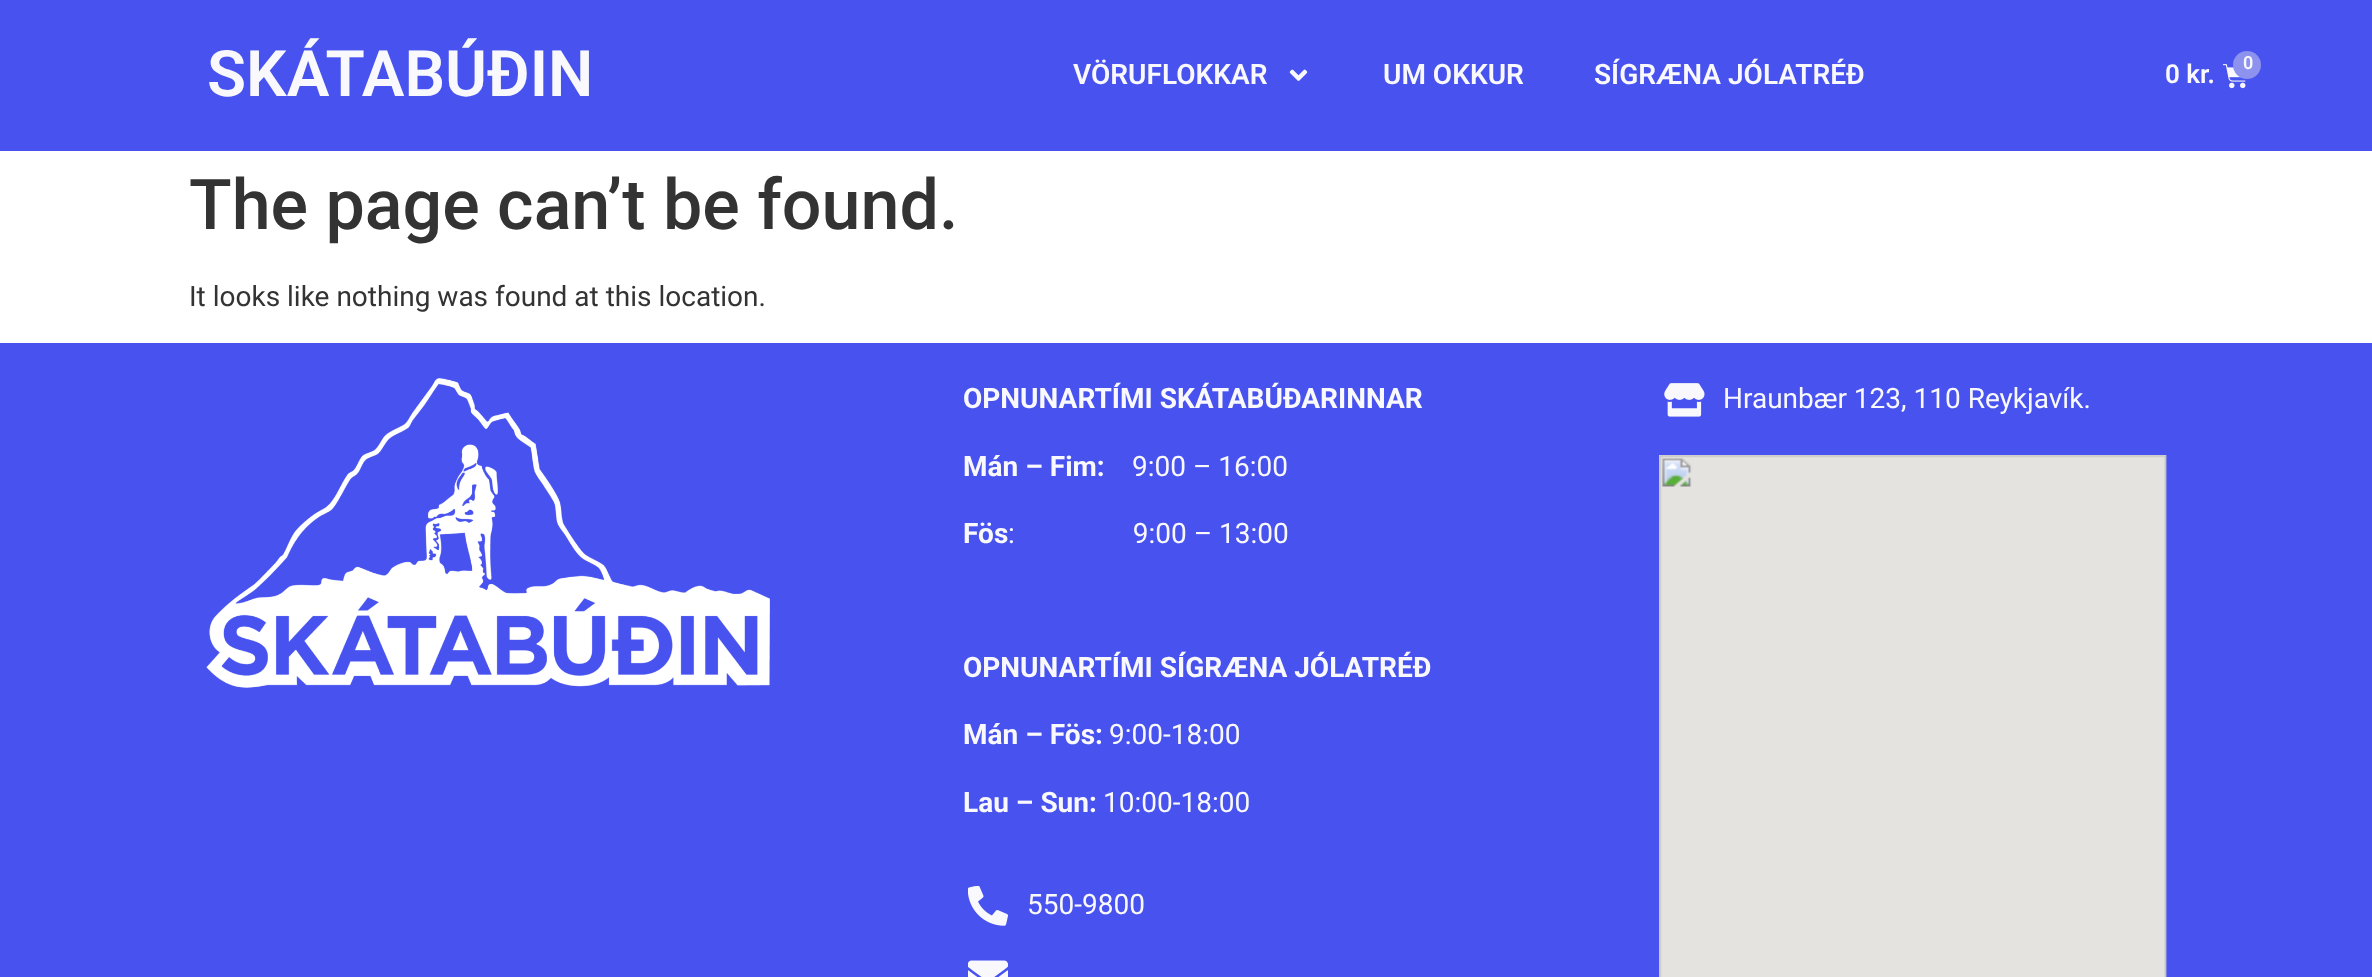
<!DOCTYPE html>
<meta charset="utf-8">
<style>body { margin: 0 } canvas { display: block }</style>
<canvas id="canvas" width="2372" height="977"></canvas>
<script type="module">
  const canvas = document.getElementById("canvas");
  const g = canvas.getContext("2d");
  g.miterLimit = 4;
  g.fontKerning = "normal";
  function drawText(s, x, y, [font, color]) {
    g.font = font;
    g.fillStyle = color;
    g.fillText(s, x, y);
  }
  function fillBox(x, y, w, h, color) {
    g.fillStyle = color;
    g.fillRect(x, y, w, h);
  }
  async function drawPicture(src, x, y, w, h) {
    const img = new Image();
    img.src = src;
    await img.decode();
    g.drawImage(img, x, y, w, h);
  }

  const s1 = ["600 64px Roboto", "#F9F9FD"];
  const s2 = ["600 28px Roboto", "#F9F9FD"];
  const s3 = ["600 26px Roboto", "#F9F9FD"];
  const s4 = ["600 18px Roboto", "#F9F9FD"];
  const s5 = ["500 70px Roboto", "#333333"];
  const s6 = ["28px Roboto", "#333333"];
  const s7 = ["bold 28px Roboto", "#F9F9FD"];
  const s8 = ["28px Roboto", "#F9F9FD"];

  fillBox(0, 0, 2372, 977, "#FFFFFF");
  fillBox(0, 0, 2372, 151, "#4853EF");
  drawText("SKÁTABÚÐIN", 207, 96, s1);
  drawText("VÖRUFLOKKAR", 1073, 84, s2);
  await drawPicture("pic1.png", 1289, 69, 19, 12);
  drawText("UM OKKUR", 1383, 84, s2);
  drawText("SÍGRÆNA JÓLATRÉÐ", 1594, 84, s2);
  drawText("0 kr.", 2165, 83, s3);
  await drawPicture("pic2.png", 2223, 64, 23, 25);
  g.fillStyle = "#8C92EE";
  g.beginPath();
  g.arc(2247, 65, 14, 0, Math.PI * 2);
  g.fill();
  drawText("0", 2243, 69, s4);
  drawText("The page can’t be found.", 189, 229, s5);
  drawText("It looks like nothing was found at this location.", 189, 306, s6);
  fillBox(0, 343, 2372, 634, "#4853EF");
  await drawPicture("pic3.png", 206, 378, 564, 310);
  drawText("OPNUNARTÍMI SKÁTABÚÐARINNAR", 963, 408, s7);
  drawText("Mán – Fim:", 963, 476, s7);
  drawText("9:00 – 16:00", 1132, 476, s8);
  drawText("Fös", 963, 543, s7);
  drawText(":                 9:00 – 13:00", 1008, 543, s8);
  drawText("OPNUNARTÍMI SÍGRÆNA JÓLATRÉÐ", 963, 677, s7);
  drawText("Mán – Fös:", 963, 744, s7);
  drawText("9:00-18:00", 1109, 744, s8);
  drawText("Lau – Sun:", 963, 812, s7);
  drawText("10:00-18:00", 1103, 812, s8);
  await drawPicture("pic4.png", 968, 886, 40, 40);
  drawText("550-9800", 1027, 914, s8);
  await drawPicture("pic5.png", 968, 960, 40, 17);
  await drawPicture("pic6.png", 1664, 383, 41, 34);
  drawText("Hraunbær 123, 110 Reykjavík.", 1723, 408, s8);
  await drawPicture("pic7.png", 1659, 455, 508, 522);
</script>
